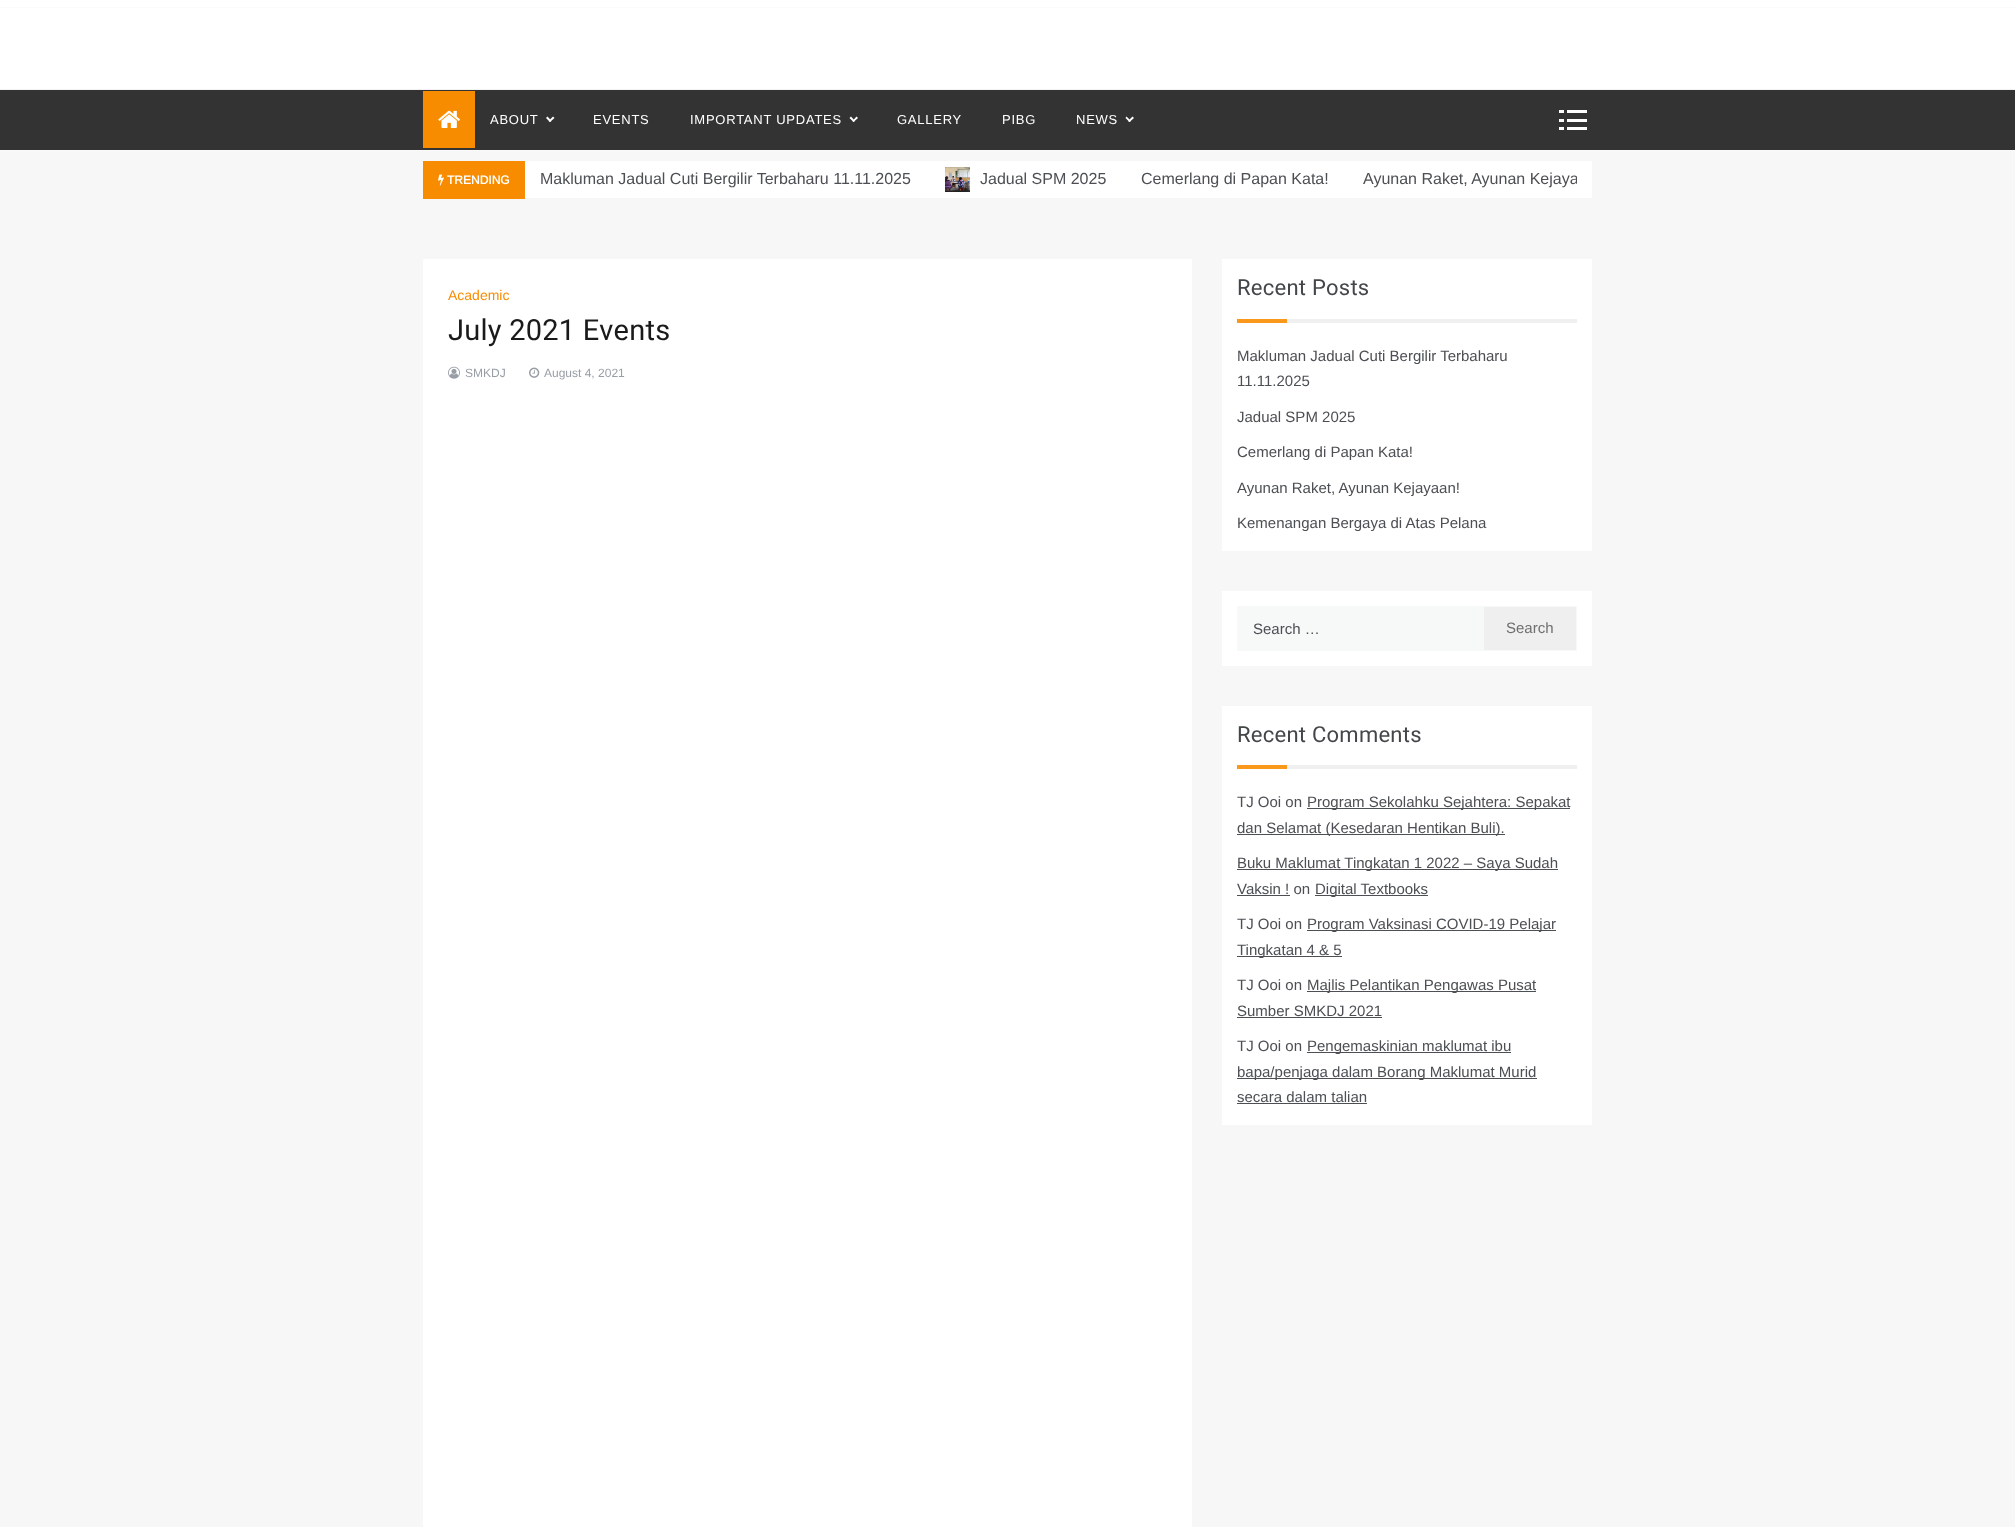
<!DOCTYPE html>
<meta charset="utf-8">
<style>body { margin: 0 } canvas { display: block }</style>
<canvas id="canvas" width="2015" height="1527"></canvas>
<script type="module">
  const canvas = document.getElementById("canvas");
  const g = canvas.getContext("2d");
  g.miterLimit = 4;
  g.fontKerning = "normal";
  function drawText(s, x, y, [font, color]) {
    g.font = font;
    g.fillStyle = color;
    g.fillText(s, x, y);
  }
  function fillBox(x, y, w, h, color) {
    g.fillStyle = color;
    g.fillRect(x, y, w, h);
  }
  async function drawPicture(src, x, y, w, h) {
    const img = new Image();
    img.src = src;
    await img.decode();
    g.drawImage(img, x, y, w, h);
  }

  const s1 = ["13px Arimo", "#FFFFFF"];
  const s2 = ["bold 12px Arimo", "#FFFFFF"];
  const s3 = ["16px Arimo", "#4C4F53"];
  const s4 = ["14px Arimo", "#F88C01"];
  const s5 = ["29px Heebo", "#1A1A1A"];
  const s6 = ["12px Arimo", "#989EA6"];
  const s7 = ["22px Heebo", "#444749"];
  const s8 = ["15px Arimo", "#4C4F53"];
  const s9 = ["15px Arimo", "#6F6F6F"];

  fillBox(0, 0, 2015, 1527, "#F7F7F7");
  fillBox(0, 0, 2015, 7, "#FFFFFF");
  fillBox(0, 7, 2015, 1, "#FAFAFA");
  fillBox(0, 8, 2015, 81, "#FFFFFF");
  fillBox(0, 150, 2015, 1, "#FAFAFA");
  fillBox(0, 89, 2015, 1, "#F2F2F2");
  fillBox(0, 90, 2015, 60, "#333333");
  fillBox(423, 91, 52, 57, "#F88C01");
  await drawPicture("pic1.png", 438, 110, 22, 18);
  g.letterSpacing = "0.75px";
  drawText("ABOUT", 490, 124, s1);
  g.beginPath();
  g.moveTo(554.5, 118);
  g.lineTo(550, 122);
  g.lineTo(548.5, 121);
  g.lineTo(553, 116.5);
  g.closePath();
  g.fill();
  g.beginPath();
  g.moveTo(551.5, 121);
  g.lineTo(550, 122);
  g.lineTo(546, 118);
  g.lineTo(547.5, 116.5);
  g.closePath();
  g.fill();
  drawText("EVENTS", 593, 124, s1);
  drawText("IMPORTANT UPDATES", 690, 124, s1);
  g.beginPath();
  g.moveTo(858, 118);
  g.lineTo(853.5, 122);
  g.lineTo(852.5, 121);
  g.lineTo(856.5, 116.5);
  g.closePath();
  g.fill();
  g.beginPath();
  g.moveTo(855, 121);
  g.lineTo(853.5, 122);
  g.lineTo(849.5, 118);
  g.lineTo(851, 116.5);
  g.closePath();
  g.fill();
  drawText("GALLERY", 897, 124, s1);
  drawText("PIBG", 1002, 124, s1);
  drawText("NEWS", 1076, 124, s1);
  g.beginPath();
  g.moveTo(1134, 118);
  g.lineTo(1129.5, 122);
  g.lineTo(1128, 121);
  g.lineTo(1132.5, 116.5);
  g.closePath();
  g.fill();
  g.beginPath();
  g.moveTo(1131, 121);
  g.lineTo(1129.5, 122);
  g.lineTo(1125.5, 118);
  g.lineTo(1126.5, 116.5);
  g.closePath();
  g.fill();
  fillBox(1567, 110, 20, 3, "#FFFFFF");
  fillBox(1559, 110, 5, 3, "#FFFFFF");
  fillBox(1567, 119, 20, 3, "#FFFFFF");
  fillBox(1559, 119, 5, 3, "#FFFFFF");
  fillBox(1567, 127, 20, 3, "#FFFFFF");
  fillBox(1559, 127, 5, 3, "#FFFFFF");
  fillBox(525, 161, 1067, 37, "#FFFFFF");
  fillBox(423, 161, 102, 38, "#F88C01");
  await drawPicture("pic2.png", 438, 174, 6, 12);
  g.letterSpacing = "0px";
  drawText("TRENDING", 447, 184, s2);
  drawText("Makluman Jadual Cuti Bergilir Terbaharu 11.11.2025", 540, 184, s3);
  await drawPicture("pic3.png", 945, 167, 25, 25);
  drawText("Jadual SPM 2025", 980, 184, s3);
  drawText("Cemerlang di Papan Kata!", 1141, 184, s3);
  g.save();
  g.beginPath();
  g.rect(525, 161, 1052, 37);
  g.clip();
  drawText("Ayunan Raket, Ayunan Kejaya", 1363, 184, s3);
  g.restore();
  fillBox(423, 259, 769, 1268, "#FFFFFF");
  drawText("Academic", 448, 300, s4);
  g.letterSpacing = "0.25px";
  drawText("July 2021 Events", 448, 340, s5);
  await drawPicture("pic4.png", 448, 366, 12, 13);
  g.letterSpacing = "0px";
  drawText("SMKDJ", 465, 377, s6);
  await drawPicture("pic5.png", 529, 367, 11, 11);
  drawText("August 4, 2021", 544, 377, s6);
  fillBox(1222, 259, 370, 292, "#FFFFFF");
  g.letterSpacing = "0.25px";
  drawText("Recent Posts", 1237, 295, s7);
  fillBox(1237, 319, 50, 4, "#F9981A");
  fillBox(1287, 319, 290, 4, "#F0F0F0");
  g.letterSpacing = "0px";
  drawText("Makluman Jadual Cuti Bergilir Terbaharu", 1237, 361, s8);
  drawText("11.11.2025", 1237, 386, s8);
  drawText("Jadual SPM 2025", 1237, 422, s8);
  drawText("Cemerlang di Papan Kata!", 1237, 457, s8);
  drawText("Ayunan Raket, Ayunan Kejayaan!", 1237, 493, s8);
  drawText("Kemenangan Bergaya di Atas Pelana", 1237, 528, s8);
  fillBox(1222, 591, 370, 75, "#FFFFFF");
  fillBox(1237, 606, 246, 45, "#F7F8F8");
  drawText("Search …", 1253, 634, s8);
  g.fillStyle = "#EFEFEF";
  g.beginPath();
  g.rect(1483.5, 606.5, 93, 44);
  g.fill();
  g.strokeStyle = "#F7F8F8";
  g.stroke();
  drawText("Search", 1506, 633, s9);
  fillBox(1222, 706, 370, 419, "#FFFFFF");
  g.letterSpacing = "0.25px";
  drawText("Recent Comments", 1237, 742, s7);
  fillBox(1237, 765, 50, 4, "#F9981A");
  fillBox(1287, 765, 290, 4, "#F0F0F0");
  g.letterSpacing = "0px";
  drawText("TJ Ooi on", 1237, 807, s8);
  fillBox(1307, 808, 263, 1, "#4C4F53");
  drawText("Program Sekolahku Sejahtera: Sepakat", 1307, 807, s8);
  fillBox(1237, 834, 268, 1, "#4C4F53");
  drawText("dan Selamat (Kesedaran Hentikan Buli).", 1237, 833, s8);
  fillBox(1237, 869, 321, 1, "#4C4F53");
  drawText("Buku Maklumat Tingkatan 1 2022 – Saya Sudah", 1237, 868, s8);
  drawText("Vaksin ! on", 1237, 894, s8);
  fillBox(1237, 895, 53, 1, "#4C4F53");
  fillBox(1315, 895, 113, 1, "#4C4F53");
  drawText("Digital Textbooks", 1315, 894, s8);
  drawText("TJ Ooi on", 1237, 929, s8);
  fillBox(1307, 930, 249, 1, "#4C4F53");
  drawText("Program Vaksinasi COVID-19 Pelajar", 1307, 929, s8);
  fillBox(1237, 956, 105, 1, "#4C4F53");
  drawText("Tingkatan 4 & 5", 1237, 955, s8);
  drawText("TJ Ooi on", 1237, 990, s8);
  fillBox(1307, 991, 229, 1, "#4C4F53");
  drawText("Majlis Pelantikan Pengawas Pusat", 1307, 990, s8);
  drawText("Sumber SMKDJ 2021", 1237, 1016, s8);
  fillBox(1237, 1017, 145, 1, "#4C4F53");
  drawText("TJ Ooi on", 1237, 1051, s8);
  fillBox(1307, 1052, 204, 1, "#4C4F53");
  drawText("Pengemaskinian maklumat ibu", 1307, 1051, s8);
  fillBox(1237, 1078, 300, 1, "#4C4F53");
  drawText("bapa/penjaga dalam Borang Maklumat Murid", 1237, 1077, s8);
  drawText("secara dalam talian", 1237, 1102, s8);
  fillBox(1237, 1103, 130, 1, "#4C4F53");
</script>
